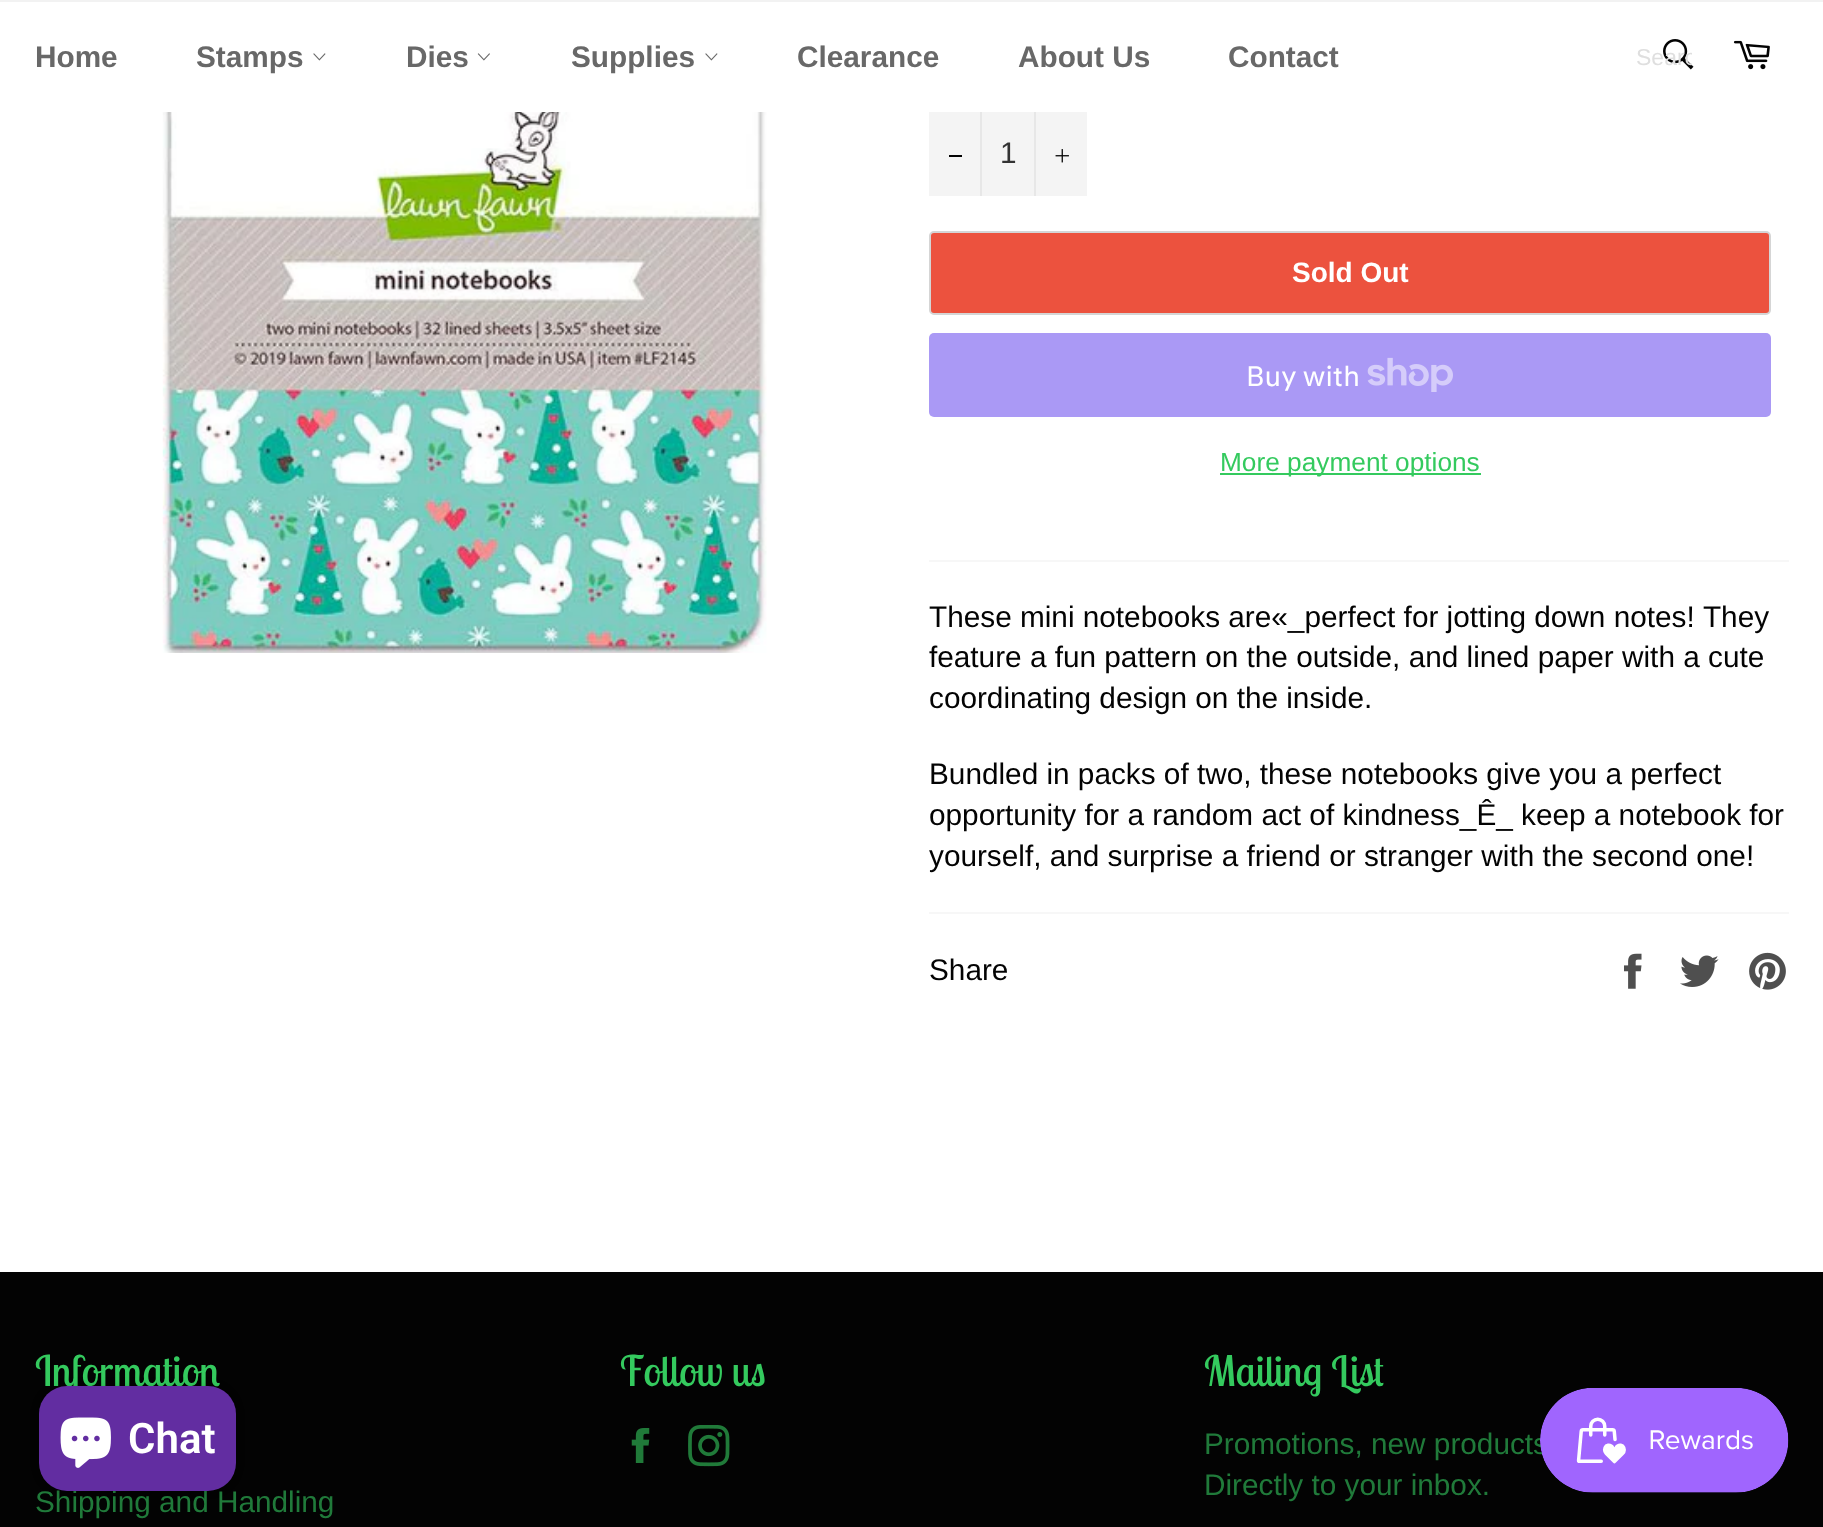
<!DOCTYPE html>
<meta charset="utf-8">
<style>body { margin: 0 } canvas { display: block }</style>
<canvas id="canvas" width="1823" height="1527"></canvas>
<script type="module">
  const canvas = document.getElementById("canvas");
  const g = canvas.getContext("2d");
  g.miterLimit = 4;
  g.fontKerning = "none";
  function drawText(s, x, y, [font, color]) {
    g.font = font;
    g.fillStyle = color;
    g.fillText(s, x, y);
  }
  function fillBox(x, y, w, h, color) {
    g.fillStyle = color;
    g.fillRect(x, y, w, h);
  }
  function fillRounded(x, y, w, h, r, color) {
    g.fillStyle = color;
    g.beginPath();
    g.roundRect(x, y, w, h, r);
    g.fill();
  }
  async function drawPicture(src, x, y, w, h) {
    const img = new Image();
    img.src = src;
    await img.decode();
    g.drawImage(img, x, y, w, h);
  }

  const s1 = ["bold 29.75px Liberation Sans", "#686868"];
  const s2 = ["23px Liberation Sans", "#DFDFDF"];
  const s3 = ["29.75px Liberation Sans", "#333333"];
  const s4 = ["bold 28px Liberation Sans", "#FFFFFF"];
  const s5 = ["28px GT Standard", "#FFFFFF"];
  const s6 = ["26.25px Liberation Sans", "#34CA5E"];
  const s7 = ["29.75px Liberation Sans", "#030303"];
  const s8 = ["42px Lobster Two", "#34CA5E"];
  const s9 = ["29.75px Liberation Sans", "#207A3A"];
  const s10 = ["600 42px Roboto", "#FFFFFF"];

  fillBox(0, 0, 1823, 1527, "#FFFFFF");
  fillBox(929, 112, 158, 84, "#F4F4F4");
  fillBox(980, 110, 2, 86, "#E7E7E7");
  fillBox(1034, 110, 2, 86, "#E7E7E7");
  fillBox(980, 110, 56, 2, "#FFFFFF");
  fillBox(0, 0, 1823, 2, "#F2F2F2");
  drawText("Home", 35, 67, s1);
  drawText("Stamps", 196, 67, s1);
  await drawPicture("pic1.png", 313, 53, 13, 8);
  drawText("Dies", 406, 67, s1);
  await drawPicture("pic2.png", 477, 53, 13, 8);
  drawText("Supplies", 571, 67, s1);
  await drawPicture("pic1.png", 705, 53, 13, 8);
  drawText("Clearance", 797, 67, s1);
  drawText("About Us", 1018, 67, s1);
  drawText("Contact", 1228, 67, s1);
  await drawPicture("pic3.png", 1663, 39, 31, 31);
  g.save();
  g.beginPath();
  g.rect(1636, 44, 56, 26);
  g.clip();
  drawText("Searc", 1636, 65, s2);
  g.restore();
  await drawPicture("pic4.png", 1733, 40, 37, 30);
  await drawPicture("pic5.png", 162, 112, 605, 541);
  fillBox(949, 155, 13, 2, "#030303");
  drawText("1", 1000, 163, s3);
  await drawPicture("pic6.png", 1055, 149, 14, 14);
  g.fillStyle = "#EC523E";
  g.beginPath();
  g.roundRect(930, 232, 840, 82, 4);
  g.fill();
  g.strokeStyle = "#D5D5D5";
  g.lineWidth = 2;
  g.stroke();
  drawText("Sold Out", 1292, 282, s4);
  fillRounded(929, 333, 842, 84, 5, "#AA99F5");
  drawText("Buy with", 1246, 386, s5);
  await drawPicture("pic7.png", 1367, 357, 86, 35);
  fillBox(1220, 473, 261, 2, "#34CA5E");
  drawText("More payment options", 1220, 471, s6);
  fillBox(929, 560, 860, 2, "#F7F7F7");
  drawText("These mini notebooks are«_perfect for jotting down notes! They", 929, 627, s7);
  drawText("feature a fun pattern on the outside, and lined paper with a cute", 929, 667, s7);
  drawText("coordinating design on the inside.", 929, 708, s7);
  drawText("Bundled in packs of two, these notebooks give you a perfect", 929, 784, s7);
  drawText("opportunity for a random act of kindness_Ê_ keep a notebook for", 929, 825, s7);
  drawText("yourself, and surprise a friend or stranger with the second one!", 929, 866, s7);
  fillBox(929, 912, 860, 2, "#F7F7F7");
  drawText("Share", 929, 980, s7);
  await drawPicture("pic8.png", 1624, 953, 18, 36);
  await drawPicture("pic9.png", 1680, 955, 39, 32);
  await drawPicture("pic10.png", 1749, 952, 37, 38);
  fillBox(0, 1272, 1823, 255, "#030303");
  drawText("Information", 35, 1386, s8);
  drawText("Shipping and Handling", 35, 1512, s9);
  drawText("Follow us", 620, 1386, s8);
  await drawPicture("pic11.png", 631, 1428, 19, 35);
  await drawPicture("pic12.png", 688, 1425, 42, 42);
  drawText("Mailing List", 1204, 1386, s8);
  drawText("Promotions, new products", 1204, 1454, s9);
  drawText("Directly to your inbox.", 1204, 1495, s9);
  g.fillStyle = "rgba(0, 0, 0, 0.15)";
  g.filter = "blur(4.5px)";
  g.beginPath();
  g.roundRect(39, 1386, 197, 105, 28);
  g.fill();
  g.filter = "none";
  fillRounded(39, 1386, 197, 105, 28, "#622DA1");
  await drawPicture("pic13.png", 60, 1417, 51, 51);
  drawText("Chat", 128, 1453, s10);
  await drawPicture("pic14.png", 1540, 1388, 249, 105);
</script>
